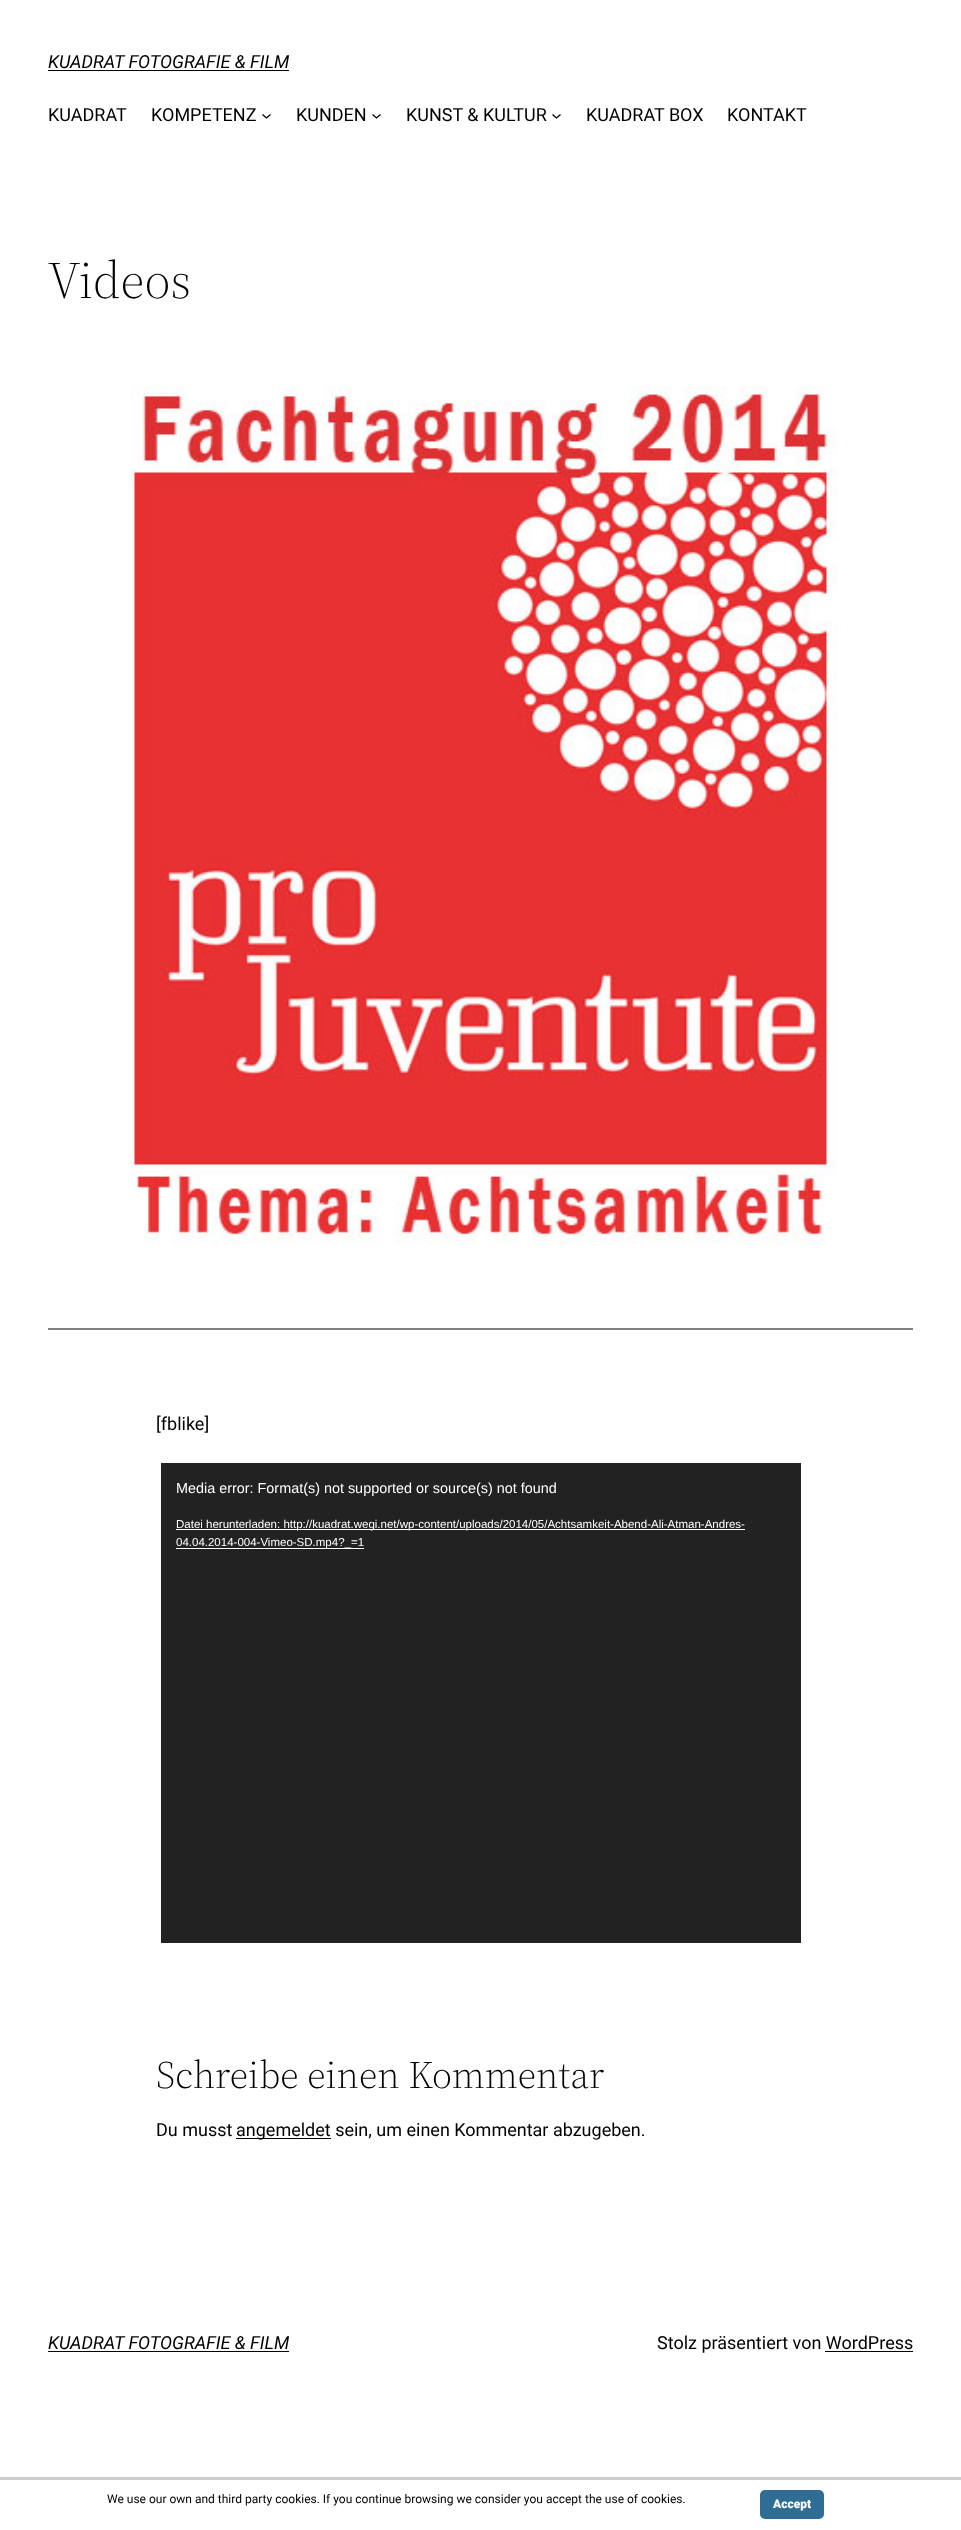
<!DOCTYPE html>
<meta charset="utf-8">
<style>body { margin: 0 } canvas { display: block }</style>
<canvas id="canvas" width="961" height="2530"></canvas>
<script type="module">
  const canvas = document.getElementById("canvas");
  const g = canvas.getContext("2d");
  g.miterLimit = 4;
  g.fontKerning = "normal";
  function drawText(s, x, y, [font, color]) {
    g.font = font;
    g.fillStyle = color;
    g.fillText(s, x, y);
  }
  function fillBox(x, y, w, h, color) {
    g.fillStyle = color;
    g.fillRect(x, y, w, h);
  }
  function fillRounded(x, y, w, h, r, color) {
    g.fillStyle = color;
    g.beginPath();
    g.roundRect(x, y, w, h, r);
    g.fill();
  }
  async function drawPicture(src, x, y, w, h) {
    const img = new Image();
    img.src = src;
    await img.decode();
    g.drawImage(img, x, y, w, h);
  }

  const s1 = ["italic 18px Roboto", "#000000"];
  const s2 = ["18px Roboto", "#000000"];
  const s3 = ["300 52px 'Source Serif 4'", "#000000"];
  const s4 = ["14.4px Liberation Sans", "#FFFFFF"];
  const s5 = ["11.5px Liberation Sans", "#FFFFFF"];
  const s6 = ["300 38.5px 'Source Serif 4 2'", "#000000"];
  const s7 = ["12px Roboto", "#000000"];
  const s8 = ["900 12px Roboto", "#FFFFFF"];

  fillBox(0, 0, 961, 2530, "#FFFFFF");
  drawText("KUADRAT FOTOGRAFIE & FILM", 48, 68, s1);
  fillBox(48, 70, 241, 1, "#000000");
  drawText("KUADRAT", 48, 121, s2);
  drawText("KOMPETENZ", 151, 121, s2);
  g.beginPath();
  g.moveTo(262.5, 114.5);
  g.lineTo(266.5, 118);
  g.lineTo(270.5, 114.5);
  g.strokeStyle = "#000000";
  g.lineWidth = 1.3;
  g.stroke();
  drawText("KUNDEN", 296, 121, s2);
  g.beginPath();
  g.moveTo(372.5, 114.5);
  g.lineTo(376.5, 118);
  g.lineTo(380.5, 114.5);
  g.stroke();
  drawText("KUNST & KULTUR", 406, 121, s2);
  g.beginPath();
  g.moveTo(552.5, 114.5);
  g.lineTo(556.5, 118);
  g.lineTo(560.5, 114.5);
  g.stroke();
  drawText("KUADRAT BOX", 586, 121, s2);
  drawText("KONTAKT", 727, 121, s2);
  drawText("Videos", 48, 298, s3);
  await drawPicture("pic1.png", 130, 386, 707, 859);
  fillBox(48, 1328, 865, 2, "#808080");
  drawText("[fblike]", 156, 1430, s2);
  fillBox(161, 1463, 640, 480, "#222222");
  drawText("Media error: Format(s) not supported or source(s) not found", 176, 1493, s4);
  fillBox(176, 1529, 569, 1, "#FFFFFF");
  drawText("Datei herunterladen: http://kuadrat.wegi.net/wp-content/uploads/2014/05/Achtsamkeit-Abend-Ali-Atman-Andres-", 176, 1528, s5);
  fillBox(176, 1548, 188, 1, "#FFFFFF");
  drawText("04.04.2014-004-Vimeo-SD.mp4?_=1", 176, 1546, s5);
  drawText("Schreibe einen Kommentar", 156, 2088, s6);
  drawText("Du musst", 156, 2136, s2);
  fillBox(236, 2138, 95, 1, "#000000");
  drawText("angemeldet sein, um einen Kommentar abzugeben.", 236, 2136, s2);
  drawText("KUADRAT FOTOGRAFIE & FILM", 48, 2349, s1);
  fillBox(48, 2351, 241, 1, "#000000");
  drawText("Stolz präsentiert von WordPress", 657, 2349, s2);
  fillBox(825, 2351, 88, 1, "#000000");
  fillBox(0, 2477, 961, 3, "#CCCCCC");
  drawText("We use our own and third party cookies. If you continue browsing we consider you accept the use of cookies.", 107, 2503, s7);
  fillRounded(760, 2490, 64, 29, 5, "#2F6D94");
  drawText("Accept", 773, 2508, s8);
</script>
